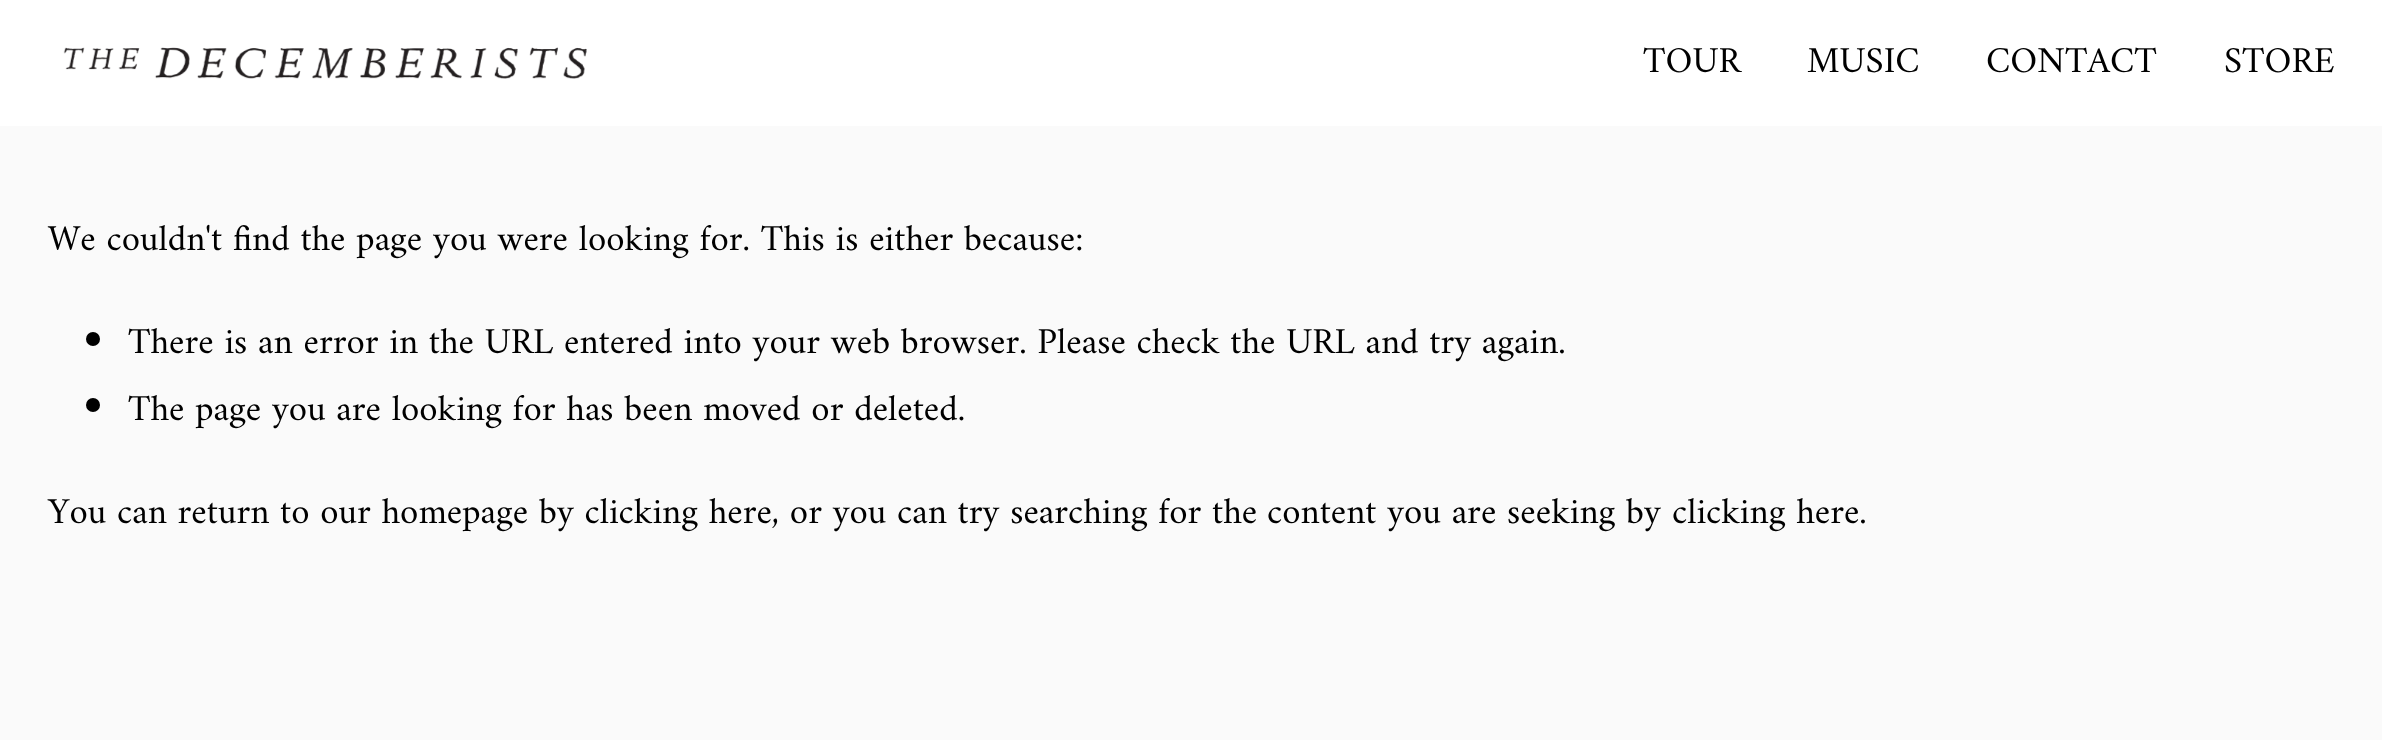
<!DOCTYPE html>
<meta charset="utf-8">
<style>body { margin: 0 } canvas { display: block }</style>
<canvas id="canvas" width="2382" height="740"></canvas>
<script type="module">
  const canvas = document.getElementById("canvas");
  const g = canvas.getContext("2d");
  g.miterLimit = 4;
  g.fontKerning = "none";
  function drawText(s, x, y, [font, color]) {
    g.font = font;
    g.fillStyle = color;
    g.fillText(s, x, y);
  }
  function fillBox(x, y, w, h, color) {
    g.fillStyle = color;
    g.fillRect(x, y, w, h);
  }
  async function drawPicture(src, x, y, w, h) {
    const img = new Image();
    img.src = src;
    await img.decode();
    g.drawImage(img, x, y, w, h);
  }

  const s1 = ["36.85px Amiri", "#000000"];

  fillBox(0, 0, 2382, 740, "#FAFAFA");
  fillBox(0, 0, 2382, 126, "#FFFFFF");
  await drawPicture("pic1.png", 63, 47, 524, 32);
  drawText("TOUR", 1643, 72, s1);
  drawText("MUSIC", 1807, 72, s1);
  drawText("CONTACT", 1986, 72, s1);
  drawText("STORE", 2224, 72, s1);
  drawText("We couldn't find the page you were looking for. This is either because:", 48, 250, s1);
  g.beginPath();
  g.arc(93, 339, 7, 0, Math.PI * 2);
  g.fill();
  drawText("There is an error in the URL entered into your web browser. Please check the URL and try again.", 128, 353, s1);
  g.beginPath();
  g.arc(93, 405, 7, 0, Math.PI * 2);
  g.fill();
  drawText("The page you are looking for has been moved or deleted.", 128, 420, s1);
  drawText("You can return to our homepage by clicking here, or you can try searching for the", 48, 523, s1);
  drawText("content you are seeking by", 1267, 523, s1);
  drawText("clicking here.", 1672, 523, s1);
</script>
